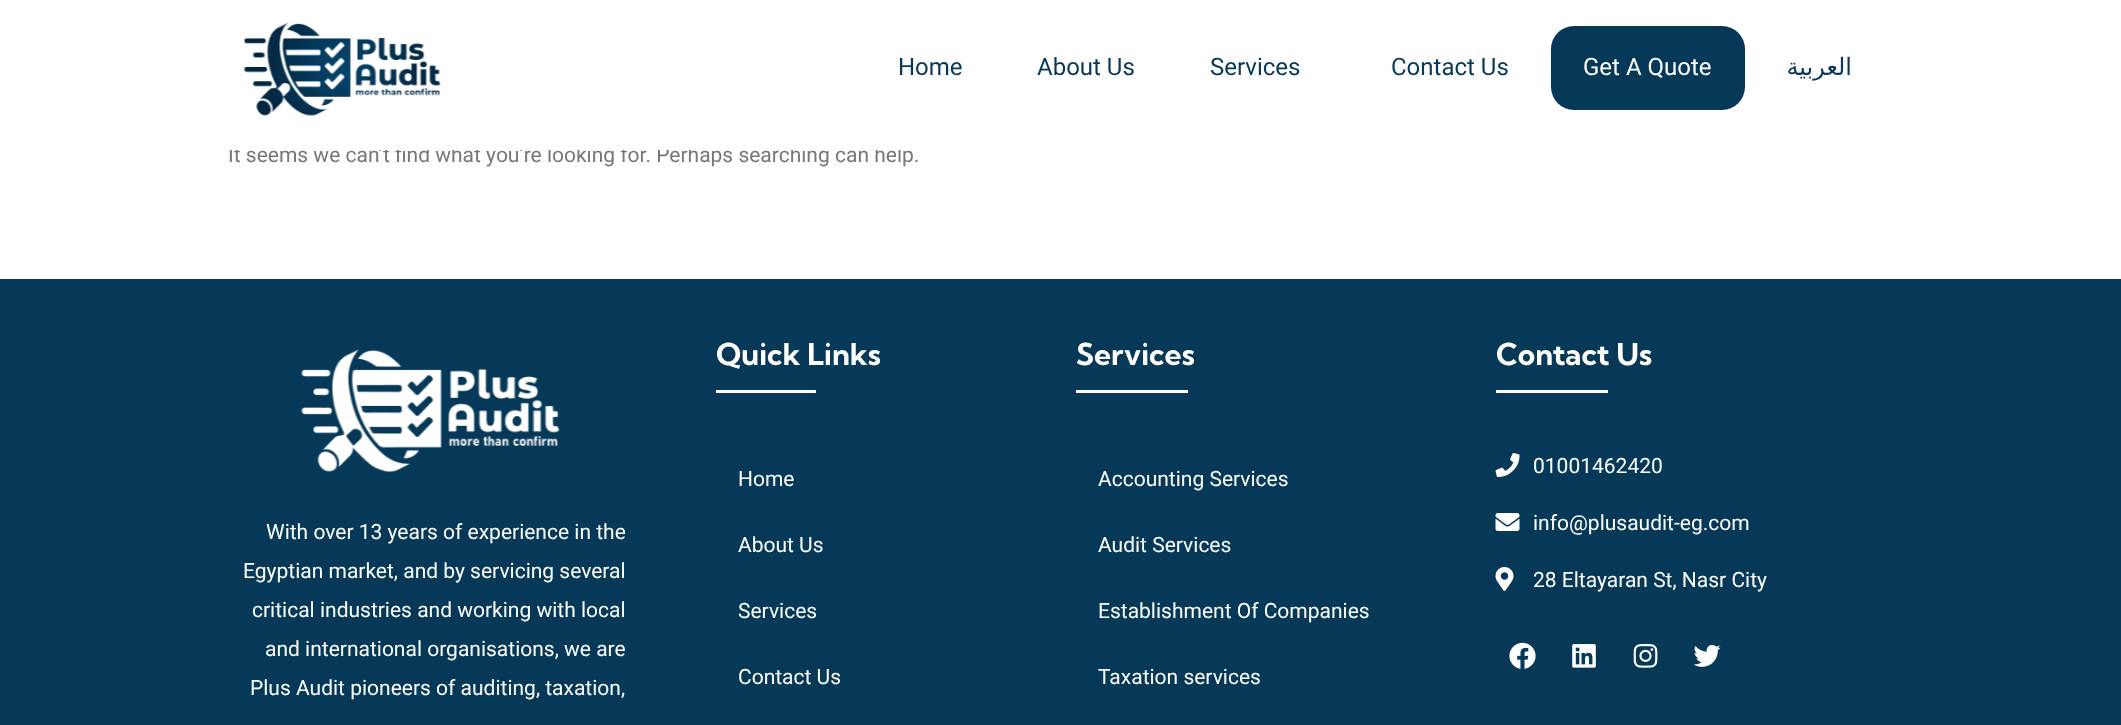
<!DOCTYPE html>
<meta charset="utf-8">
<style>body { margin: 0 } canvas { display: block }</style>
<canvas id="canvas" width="2121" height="725"></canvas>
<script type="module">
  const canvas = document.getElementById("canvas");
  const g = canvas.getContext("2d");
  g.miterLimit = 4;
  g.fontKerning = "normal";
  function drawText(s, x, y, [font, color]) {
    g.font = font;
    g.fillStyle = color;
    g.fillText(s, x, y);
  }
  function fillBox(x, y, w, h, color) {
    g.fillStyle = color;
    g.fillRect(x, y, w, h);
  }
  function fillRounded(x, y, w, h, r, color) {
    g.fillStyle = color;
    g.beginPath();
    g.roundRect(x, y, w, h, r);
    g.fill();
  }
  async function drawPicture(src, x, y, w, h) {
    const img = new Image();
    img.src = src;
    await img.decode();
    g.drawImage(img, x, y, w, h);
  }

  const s1 = ["21px Roboto", "#777777"];
  const s2 = ["24px Roboto", "#063958"];
  const s3 = ["24px Roboto", "#FFFFFF"];
  const s4 = ["24px DejaVu Sans", "#063958"];
  const s5 = ["bold 30px Kumbh Sans", "#FFFFFF"];
  const s6 = ["21px Roboto", "#FFFFFF"];

  fillBox(0, 0, 2121, 725, "#FFFFFF");
  drawText("It seems we can’t find what you’re looking for. Perhaps searching can help.", 228, 162, s1);
  fillBox(229, 146, 672, 4, "#FFFFFF");
  await drawPicture("pic1.png", 243, 22, 198, 94);
  drawText("Home", 898, 75, s2);
  drawText("About Us", 1037, 75, s2);
  drawText("Services", 1210, 75, s2);
  drawText("Contact Us", 1391, 75, s2);
  fillRounded(1551, 26, 194, 84, 23, "#063958");
  drawText("Get A Quote", 1583, 75, s3);
  g.direction = "rtl";
  drawText("العربية", 1852, 75, s4);
  fillBox(0, 279, 2121, 446, "#063958");
  g.direction = "ltr";
  drawText("Quick Links", 716, 365, s5);
  fillBox(716, 390, 100, 3, "#FFFFFF");
  drawText("Home", 738, 486, s6);
  drawText("About Us", 738, 552, s6);
  drawText("Services", 738, 618, s6);
  drawText("Contact Us", 738, 684, s6);
  drawText("Services", 1076, 365, s5);
  fillBox(1076, 390, 112, 3, "#FFFFFF");
  drawText("Accounting Services", 1098, 486, s6);
  drawText("Audit Services", 1098, 552, s6);
  drawText("Establishment Of Companies", 1098, 618, s6);
  drawText("Taxation services", 1098, 684, s6);
  drawText("Contact Us", 1496, 365, s5);
  fillBox(1496, 390, 112, 3, "#FFFFFF");
  await drawPicture("pic2.png", 1495, 453, 25, 24);
  drawText("01001462420", 1533, 473, s6);
  await drawPicture("pic3.png", 1495, 513, 25, 18);
  drawText("info@plusaudit-eg.com", 1533, 530, s6);
  await drawPicture("pic4.png", 1495, 567, 19, 24);
  drawText("28 Eltayaran St, Nasr City", 1533, 587, s6);
  await drawPicture("pic5.png", 1509, 642, 27, 27);
  await drawPicture("pic6.png", 1572, 644, 24, 24);
  await drawPicture("pic7.png", 1633, 644, 25, 24);
  await drawPicture("pic8.png", 1693, 644, 28, 23);
  await drawPicture("pic9.png", 301, 349, 259, 124);
  drawText("With over 13 years of experience in the", 266, 539, s6);
  drawText("Egyptian market, and by servicing several", 243, 578, s6);
  drawText("critical industries and working with local", 252, 617, s6);
  drawText("and international organisations, we are", 265, 656, s6);
  drawText("Plus Audit pioneers of auditing, taxation,", 250, 695, s6);
</script>
